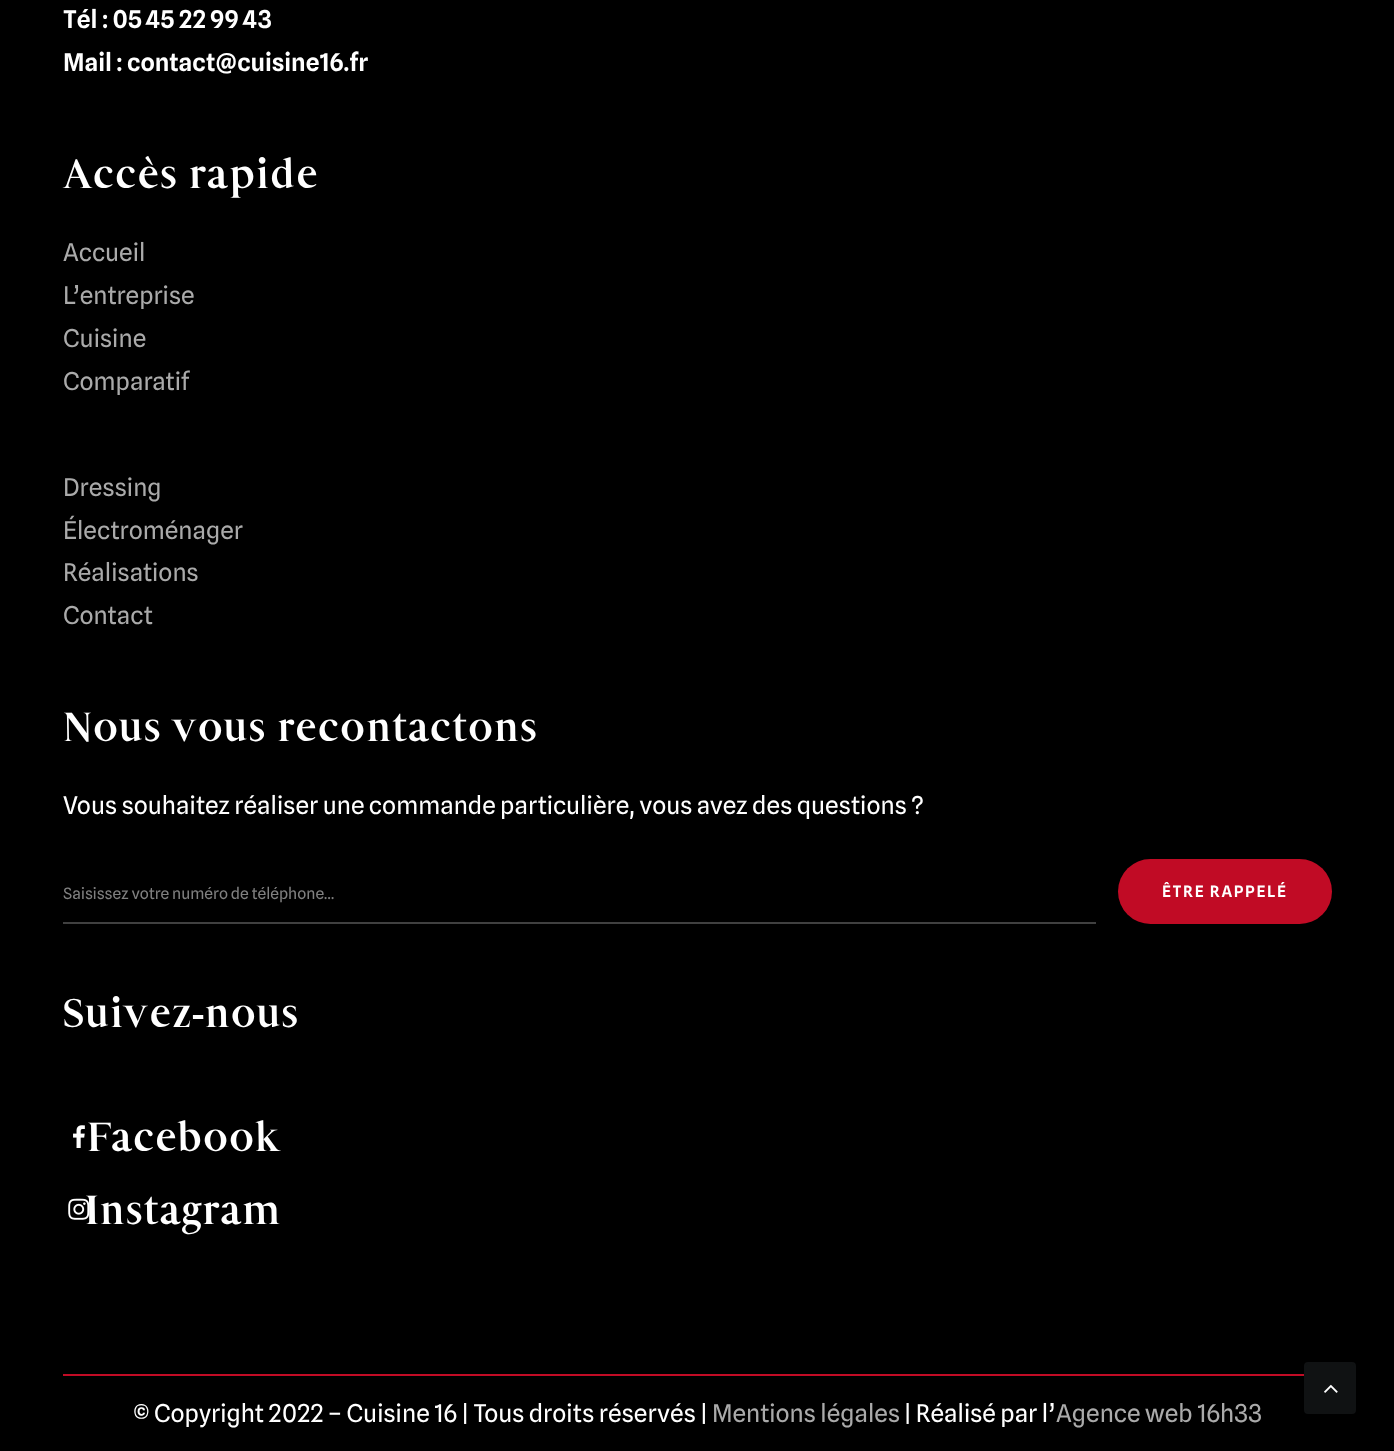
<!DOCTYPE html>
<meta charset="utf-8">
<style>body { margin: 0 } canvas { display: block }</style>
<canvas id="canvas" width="1394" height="1451"></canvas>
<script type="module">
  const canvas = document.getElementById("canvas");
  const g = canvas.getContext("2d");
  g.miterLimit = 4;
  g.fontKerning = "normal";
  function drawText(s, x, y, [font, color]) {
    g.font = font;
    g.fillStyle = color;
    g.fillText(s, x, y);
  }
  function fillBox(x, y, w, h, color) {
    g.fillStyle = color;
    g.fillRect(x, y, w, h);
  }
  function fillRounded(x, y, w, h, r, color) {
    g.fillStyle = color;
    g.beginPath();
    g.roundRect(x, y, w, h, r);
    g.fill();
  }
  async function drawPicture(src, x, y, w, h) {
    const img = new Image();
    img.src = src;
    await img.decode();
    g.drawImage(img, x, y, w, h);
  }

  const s1 = ["600 24.5px Spline Sans", "#FFFFFF"];
  const s2 = ["bold 43.75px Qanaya", "#FFFFFF"];
  const s3 = ["24.5px Spline Sans", "#AAAAAA"];
  const s4 = ["24.5px Spline Sans", "#FFFFFF"];
  const s5 = ["15.75px Spline Sans", "#808080"];
  const s6 = ["600 15.75px Spline Sans", "#FFFFFF"];

  fillBox(0, 0, 1394, 1451, "#000000");
  drawText("Tél : 05 45 22 99 43", 63, 28, s1);
  drawText("Mail : contact@cuisine16.fr", 63, 71, s1);
  drawText("Accès rapide", 63, 188, s2);
  drawText("Accueil", 63, 261, s3);
  drawText("L’entreprise", 63, 304, s3);
  drawText("Cuisine", 63, 347, s3);
  drawText("Comparatif", 63, 390, s3);
  drawText("Dressing", 63, 496, s3);
  drawText("Électroménager", 63, 539, s3);
  drawText("Réalisations", 63, 581, s3);
  drawText("Contact", 63, 624, s3);
  drawText("Nous vous recontactons", 63, 741, s2);
  drawText("Vous souhaitez réaliser une commande particulière, vous avez des questions ?", 63, 814, s4);
  fillBox(63, 922, 1033, 2, "#404040");
  drawText("Saisissez votre numéro de téléphone…", 63, 899, s5);
  fillRounded(1118, 859, 214, 65, 32.5, "#C10B25");
  g.letterSpacing = "1.75px";
  drawText("ÊTRE RAPPELÉ", 1162, 897, s6);
  g.letterSpacing = "0px";
  drawText("Suivez-nous", 63, 1027, s2);
  await drawPicture("pic1.png", 73, 1125, 12, 23);
  drawText("Facebook", 87, 1151, s2);
  await drawPicture("pic2.png", 68, 1198, 22, 22);
  drawText("Instagram", 85, 1224, s2);
  fillBox(63, 1374, 1241, 2, "#C10B25");
  drawText("© Copyright 2022 – Cuisine 16 | Tous droits réservés |", 133, 1422, s4);
  drawText("Mentions légales", 712, 1422, s3);
  drawText("| Réalisé par l’", 904, 1422, s4);
  drawText("Agence web 16h33", 1056, 1422, s3);
  g.fillStyle = "#101213";
  g.beginPath();
  g.roundRect(1305, 1363, 50, 50, 3);
  g.fill();
  g.strokeStyle = "#101213";
  g.lineWidth = 2;
  g.stroke();
  await drawPicture("pic3.png", 1324, 1384, 14, 9);
</script>
